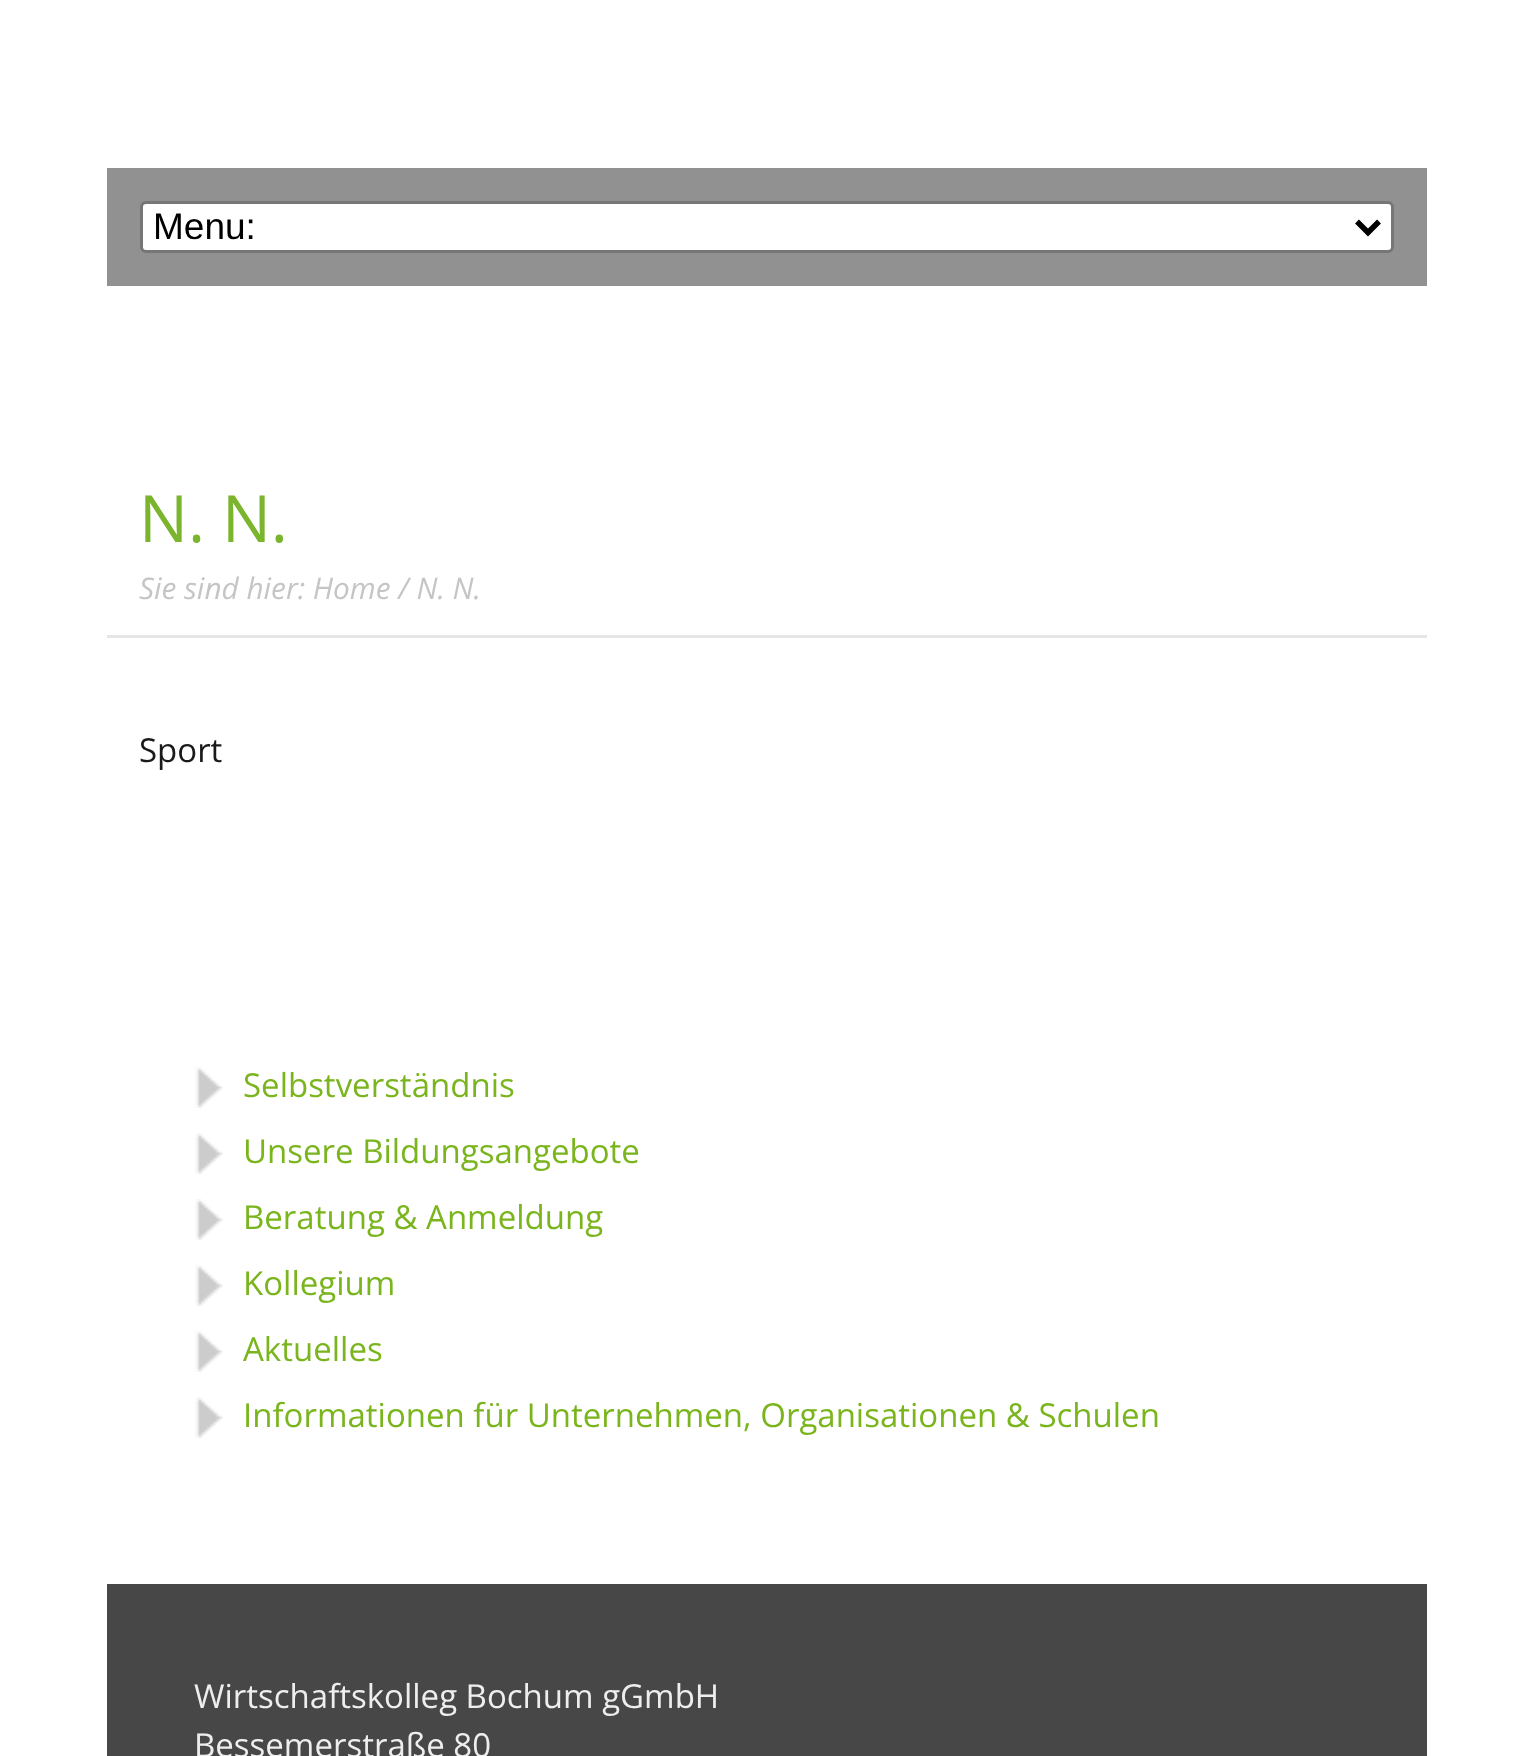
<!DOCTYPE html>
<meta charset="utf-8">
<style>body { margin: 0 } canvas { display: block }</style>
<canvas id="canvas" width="1531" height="1756"></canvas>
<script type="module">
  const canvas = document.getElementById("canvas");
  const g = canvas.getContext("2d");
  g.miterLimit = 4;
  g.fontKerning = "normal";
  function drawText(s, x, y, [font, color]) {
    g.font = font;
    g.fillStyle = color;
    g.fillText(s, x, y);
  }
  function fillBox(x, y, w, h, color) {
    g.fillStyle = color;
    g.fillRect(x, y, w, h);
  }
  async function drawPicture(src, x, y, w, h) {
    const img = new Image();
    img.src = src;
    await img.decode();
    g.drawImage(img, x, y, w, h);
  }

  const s1 = ["37px Liberation Sans", "#000000"];
  const s2 = ["65px Open Sans", "#7BB42D"];
  const s3 = ["italic 29.75px Open Sans", "#C5C5C5"];
  const s4 = ["33px Open Sans", "#1A1A1A"];
  const s5 = ["33px Open Sans", "#7AB51D"];
  const s6 = ["33px Open Sans", "#EEEEEE"];

  fillBox(0, 0, 1531, 1756, "#FFFFFF");
  fillBox(107, 168, 1320, 118, "#919191");
  g.fillStyle = "#FFFFFF";
  g.beginPath();
  g.roundRect(141.5, 202.5, 1251, 49, 4.5);
  g.fill();
  g.strokeStyle = "#767676";
  g.lineWidth = 3;
  g.stroke();
  g.beginPath();
  g.moveTo(1357, 221.5);
  g.lineTo(1368, 232.5);
  g.lineTo(1379, 221.5);
  g.strokeStyle = "#000000";
  g.lineWidth = 5.5;
  g.stroke();
  drawText("Menu:", 153, 239, s1);
  drawText("N. N.", 139, 542, s2);
  drawText("Sie sind hier: Home / N. N.", 139, 599, s3);
  fillBox(107, 635, 1320, 3, "#E6E6E6");
  drawText("Sport", 139, 762, s4);
  await drawPicture("pic1.png", 195, 1067, 28, 41);
  drawText("Selbstverständnis", 243, 1097, s5);
  await drawPicture("pic1.png", 195, 1133, 28, 41);
  drawText("Unsere Bildungsangebote", 243, 1163, s5);
  await drawPicture("pic1.png", 195, 1199, 28, 41);
  drawText("Beratung & Anmeldung", 243, 1229, s5);
  await drawPicture("pic1.png", 195, 1265, 28, 41);
  drawText("Kollegium", 243, 1295, s5);
  await drawPicture("pic1.png", 195, 1331, 28, 41);
  drawText("Aktuelles", 243, 1361, s5);
  await drawPicture("pic1.png", 195, 1397, 28, 41);
  drawText("Informationen für Unternehmen, Organisationen & Schulen", 243, 1427, s5);
  fillBox(107, 1584, 1320, 172, "#474747");
  drawText("Wirtschaftskolleg Bochum gGmbH", 194, 1708, s6);
  drawText("Bessemerstraße 80", 194, 1757, s6);
</script>
